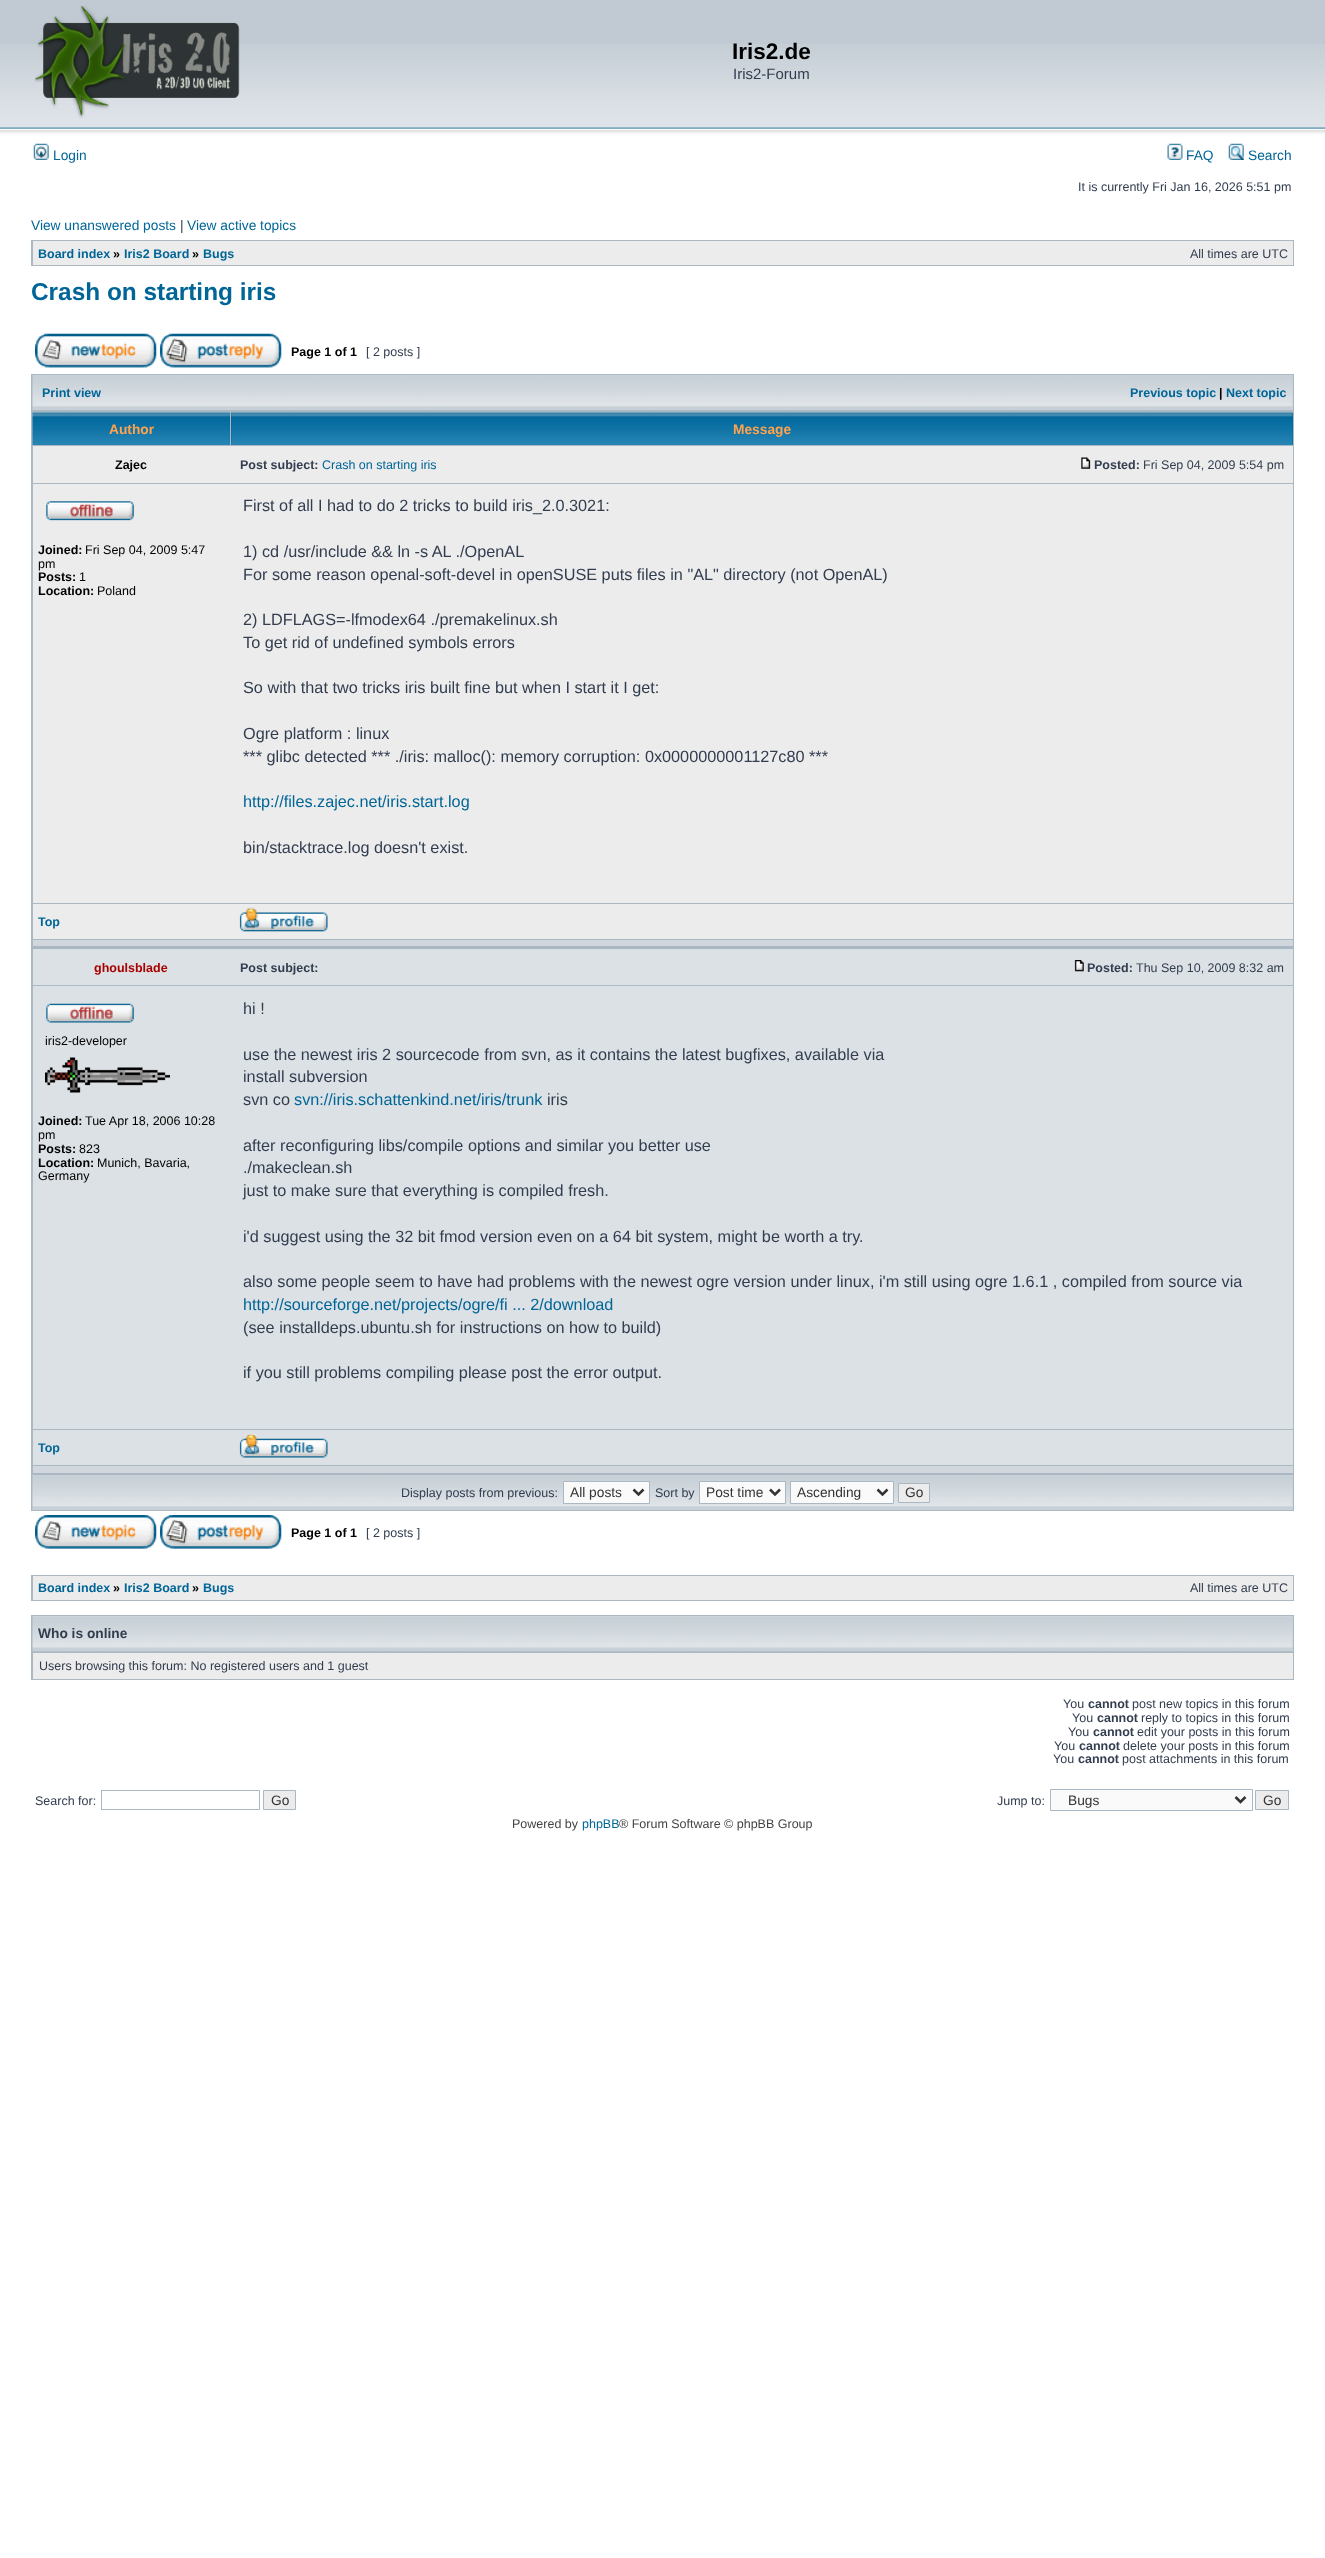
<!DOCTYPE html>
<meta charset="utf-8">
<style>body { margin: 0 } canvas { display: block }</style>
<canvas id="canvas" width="1325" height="2558"></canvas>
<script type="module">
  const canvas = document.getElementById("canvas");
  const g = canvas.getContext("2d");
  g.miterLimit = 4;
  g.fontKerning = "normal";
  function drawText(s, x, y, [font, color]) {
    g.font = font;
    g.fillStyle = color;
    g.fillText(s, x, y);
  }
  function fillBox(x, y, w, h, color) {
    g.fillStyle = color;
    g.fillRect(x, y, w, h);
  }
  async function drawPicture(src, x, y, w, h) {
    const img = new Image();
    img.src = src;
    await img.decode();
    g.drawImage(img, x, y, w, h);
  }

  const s1 = ["bold 22.5px Liberation Sans", "#000000"];
  const s2 = ["15px Liberation Sans", "#323D4F"];
  const s3 = ["13.75px Liberation Sans", "#006597"];
  const s4 = ["12.5px Liberation Sans", "#323D4F"];
  const s5 = ["13.75px Liberation Sans", "#323D4F"];
  const s6 = ["bold 12.5px Liberation Sans", "#006597"];
  const s7 = ["bold 12.5px Liberation Sans", "#000000"];
  const s8 = ["bold 24.4px Liberation Sans", "#006597"];
  const s9 = ["bold 13.75px Liberation Sans", "#FFA34F"];
  const s10 = ["bold 12.5px Liberation Sans", "#323D4F"];
  const s11 = ["12.5px Liberation Sans", "#006597"];
  const s12 = ["12.5px Liberation Sans", "#000000"];
  const s13 = ["16.25px Liberation Sans", "#323D4F"];
  const s14 = ["16.25px Liberation Sans", "#006597"];
  const s15 = ["bold 12.5px Liberation Sans", "#AA0000"];
  const s16 = ["13.75px Liberation Sans", "#333333"];
  const s17 = ["bold 13.75px Liberation Sans", "#323D4F"];
  const s18 = ["12.5px Liberation Sans", "#444444"];

  fillBox(0, 0, 1325, 2558, "#FFFFFF");
  fillBox(0, 0, 1325, 44, "#C1CAD2");
  await drawPicture("pic1.png", 0, 44, 1325, 97);
  await drawPicture("pic2.png", 34, 5, 206, 113);
  drawText("Iris2.de", 732, 59, s1);
  drawText("Iris2-Forum", 733, 79, s2);
  await drawPicture("pic3.png", 33, 143, 16, 17);
  drawText("Login", 53, 160, s3);
  await drawPicture("pic4.png", 1167, 143, 16, 17);
  drawText("FAQ", 1186, 160, s3);
  await drawPicture("pic5.png", 1228, 143, 16, 17);
  drawText("Search", 1248, 160, s3);
  drawText("It is currently Fri Jan 16, 2026 5:51 pm", 1078, 191, s4);
  drawText("View unanswered posts", 31, 230, s3);
  drawText("|", 180, 230, s5);
  drawText("View active topics", 187, 230, s3);
  fillBox(31, 240, 1263, 26, "#A9B8C2");
  fillBox(33, 241, 1260, 24, "#ECECEC");
  drawText("Board index", 38, 258, s6);
  drawText("»", 113, 258, s7);
  drawText("Iris2 Board", 124, 258, s6);
  drawText("»", 192, 258, s7);
  drawText("Bugs", 203, 258, s6);
  drawText("All times are UTC", 1190, 258, s4);
  drawText("Crash on starting iris", 31, 300, s8);
  await drawPicture("pic6.png", 35, 333, 122, 35);
  await drawPicture("pic7.png", 160, 333, 122, 35);
  drawText("Page 1 of 1", 291, 356, s7);
  drawText("[ 2 posts ]", 366, 356, s4);
  fillBox(31, 374, 1263, 1137, "#A9B8C2");
  fillBox(1292, 375, 1, 35, "#C7D0D7");
  await drawPicture("pic8.png", 32, 375, 1261, 35);
  drawText("Print view", 42, 397, s6);
  drawText("Previous topic", 1130, 397, s6);
  drawText("|", 1219, 397, s7);
  drawText("Next topic", 1226, 397, s6);
  await drawPicture("pic9.png", 32, 412, 198, 33);
  drawText("Author", 109, 434, s9);
  fillBox(231, 413, 1062, 32, "#006699");
  await drawPicture("pic10.png", 231, 412, 1062, 33);
  drawText("Message", 733, 434, s9);
  fillBox(33, 446, 1260, 37, "#ECECEC");
  drawText("Zajec", 115, 469, s7);
  drawText("Post subject:", 240, 469, s10);
  drawText("Crash on starting iris", 322, 469, s11);
  await drawPicture("pic11.png", 1081, 457, 10, 12);
  drawText("Posted:", 1094, 469, s10);
  drawText("Fri Sep 04, 2009 5:54 pm", 1143, 469, s4);
  fillBox(33, 484, 1260, 419, "#ECECEC");
  await drawPicture("pic12.png", 46, 501, 88, 20);
  drawText("Joined:", 38, 554, s7);
  drawText("Fri Sep 04, 2009 5:47", 85, 554, s12);
  drawText("pm", 38, 568, s12);
  drawText("Posts:", 38, 581, s7);
  drawText("1", 79, 581, s12);
  drawText("Location:", 38, 595, s7);
  drawText("Poland", 97, 595, s12);
  drawText("First of all I had to do 2 tricks to build iris_2.0.3021:", 243, 511, s13);
  drawText("1) cd /usr/include && ln -s AL ./OpenAL", 243, 557, s13);
  drawText("For some reason openal-soft-devel in openSUSE puts files in \"AL\" directory (not OpenAL)", 243, 580, s13);
  drawText("2) LDFLAGS=-lfmodex64 ./premakelinux.sh", 243, 625, s13);
  drawText("To get rid of undefined symbols errors", 243, 648, s13);
  drawText("So with that two tricks iris built fine but when I start it I get:", 243, 693, s13);
  drawText("Ogre platform : linux", 243, 739, s13);
  drawText("*** glibc detected *** ./iris: malloc(): memory corruption: 0x0000000001127c80 ***", 243, 762, s13);
  drawText("http://files.zajec.net/iris.start.log", 243, 807, s14);
  drawText("bin/stacktrace.log doesn't exist.", 243, 853, s13);
  fillBox(33, 904, 1260, 35, "#ECECEC");
  drawText("Top", 38, 926, s6);
  await drawPicture("pic13.png", 239, 907, 89, 25);
  fillBox(33, 940, 1260, 6, "#D1D7DC");
  fillBox(33, 949, 1260, 36, "#DCE1E5");
  drawText("ghoulsblade", 94, 972, s15);
  drawText("Post subject:", 240, 972, s10);
  await drawPicture("pic14.png", 1074, 960, 10, 12);
  drawText("Posted:", 1087, 972, s10);
  drawText("Thu Sep 10, 2009 8:32 am", 1136, 972, s4);
  fillBox(33, 986, 1260, 443, "#DCE1E5");
  await drawPicture("pic15.png", 46, 1003, 88, 20);
  drawText("iris2-developer", 45, 1045, s12);
  await drawPicture("pic16.png", 45, 1057, 125, 36);
  drawText("Joined:", 38, 1125, s7);
  drawText("Tue Apr 18, 2006 10:28", 85, 1125, s12);
  drawText("pm", 38, 1139, s12);
  drawText("Posts:", 38, 1153, s7);
  drawText("823", 79, 1153, s12);
  drawText("Location:", 38, 1167, s7);
  drawText("Munich, Bavaria,", 97, 1167, s12);
  drawText("Germany", 38, 1180, s12);
  drawText("hi !", 243, 1014, s13);
  drawText("use the newest iris 2 sourcecode from svn, as it contains the latest bugfixes, available via", 243, 1060, s13);
  drawText("install subversion", 243, 1082, s13);
  drawText("svn co", 243, 1105, s13);
  drawText("svn://iris.schattenkind.net/iris/trunk", 294, 1105, s14);
  drawText("iris", 547, 1105, s13);
  drawText("after reconfiguring libs/compile options and similar you better use", 243, 1151, s13);
  drawText("./makeclean.sh", 243, 1173, s13);
  drawText("just to make sure that everything is compiled fresh.", 243, 1196, s13);
  drawText("i'd suggest using the 32 bit fmod version even on a 64 bit system, might be worth a try.", 243, 1242, s13);
  drawText("also some people seem to have had problems with the newest ogre version under linux, i'm still using ogre 1.6.1 , compiled from source via", 243, 1287, s13);
  drawText("http://sourceforge.net/projects/ogre/fi ... 2/download", 243, 1310, s14);
  drawText("(see installdeps.ubuntu.sh for instructions on how to build)", 243, 1333, s13);
  drawText("if you still problems compiling please post the error output.", 243, 1378, s13);
  fillBox(33, 1430, 1260, 35, "#DCE1E5");
  drawText("Top", 38, 1452, s6);
  await drawPicture("pic17.png", 239, 1434, 89, 24);
  fillBox(33, 1466, 1260, 7, "#D1D7DC");
  fillBox(1292, 1475, 1, 35, "#C7D0D7");
  await drawPicture("pic8.png", 32, 1475, 1261, 35);
  drawText("Display posts from previous:", 401, 1497, s4);
  g.fillStyle = "#FAFAFA";
  g.beginPath();
  g.rect(563.5, 1481.5, 86, 22);
  g.fill();
  g.strokeStyle = "#A9B8C2";
  g.stroke();
  g.beginPath();
  g.moveTo(633.5, 1489.5);
  g.lineTo(638.5, 1494.5);
  g.lineTo(643.5, 1489.5);
  g.strokeStyle = "#333333";
  g.lineWidth = 2.5;
  g.stroke();
  drawText("All posts", 570, 1497, s16);
  drawText("Sort by", 655, 1497, s4);
  g.fillStyle = "#FAFAFA";
  g.beginPath();
  g.rect(699.5, 1481.5, 86, 22);
  g.fill();
  g.strokeStyle = "#A9B8C2";
  g.lineWidth = 1;
  g.stroke();
  g.beginPath();
  g.moveTo(770, 1489.5);
  g.lineTo(775, 1494.5);
  g.lineTo(780, 1489.5);
  g.strokeStyle = "#333333";
  g.lineWidth = 2.5;
  g.stroke();
  drawText("Post time", 706, 1497, s16);
  g.fillStyle = "#FAFAFA";
  g.beginPath();
  g.rect(790.5, 1481.5, 103, 22);
  g.fill();
  g.strokeStyle = "#A9B8C2";
  g.lineWidth = 1;
  g.stroke();
  g.beginPath();
  g.moveTo(877.5, 1489.5);
  g.lineTo(882.5, 1494.5);
  g.lineTo(887.5, 1489.5);
  g.strokeStyle = "#333333";
  g.lineWidth = 2.5;
  g.stroke();
  drawText("Ascending", 797, 1497, s16);
  g.fillStyle = "#ECECEC";
  g.beginPath();
  g.rect(898.5, 1483.5, 31, 19);
  g.fill();
  g.strokeStyle = "#A9B8C2";
  g.lineWidth = 1;
  g.stroke();
  drawText("Go", 905, 1497, s16);
  await drawPicture("pic18.png", 35, 1515, 122, 34);
  await drawPicture("pic19.png", 160, 1515, 122, 34);
  drawText("Page 1 of 1", 291, 1537, s7);
  drawText("[ 2 posts ]", 366, 1537, s4);
  fillBox(31, 1575, 1263, 26, "#A9B8C2");
  fillBox(33, 1576, 1260, 24, "#ECECEC");
  drawText("Board index", 38, 1592, s6);
  drawText("»", 113, 1592, s7);
  drawText("Iris2 Board", 124, 1592, s6);
  drawText("»", 192, 1592, s7);
  drawText("Bugs", 203, 1592, s6);
  drawText("All times are UTC", 1190, 1592, s4);
  fillBox(31, 1615, 1263, 65, "#A9B8C2");
  fillBox(33, 1616, 1260, 35, "#C7D0D7");
  await drawPicture("pic20.png", 32, 1616, 1261, 36);
  drawText("Who is online", 38, 1638, s17);
  fillBox(33, 1653, 1260, 26, "#ECECEC");
  drawText("Users browsing this forum: No registered users and 1 guest", 39, 1670, s4);
  drawText("You", 1063, 1708, s4);
  drawText("cannot", 1088, 1708, s10);
  drawText("post new topics in this forum", 1132, 1708, s4);
  drawText("You", 1072, 1722, s4);
  drawText("cannot", 1097, 1722, s10);
  drawText("reply to topics in this forum", 1141, 1722, s4);
  drawText("You", 1068, 1736, s4);
  drawText("cannot", 1093, 1736, s10);
  drawText("edit your posts in this forum", 1137, 1736, s4);
  drawText("You", 1054, 1750, s4);
  drawText("cannot", 1079, 1750, s10);
  drawText("delete your posts in this forum", 1123, 1750, s4);
  drawText("You", 1053, 1763, s4);
  drawText("cannot", 1078, 1763, s10);
  drawText("post attachments in this forum", 1122, 1763, s4);
  drawText("Search for:", 35, 1805, s4);
  g.strokeRect(101.5, 1790.5, 158, 19);
  g.fillStyle = "#ECECEC";
  g.beginPath();
  g.rect(263.5, 1790.5, 32, 19);
  g.fill();
  g.stroke();
  drawText("Go", 271, 1805, s16);
  drawText("Jump to:", 997, 1805, s4);
  g.fillStyle = "#FAFAFA";
  g.beginPath();
  g.rect(1050.5, 1789.5, 202, 21);
  g.fill();
  g.stroke();
  g.beginPath();
  g.moveTo(1235.5, 1797);
  g.lineTo(1240.5, 1802);
  g.lineTo(1245.5, 1797);
  g.strokeStyle = "#333333";
  g.lineWidth = 2.5;
  g.stroke();
  drawText("Bugs", 1068, 1805, s16);
  g.fillStyle = "#ECECEC";
  g.beginPath();
  g.rect(1255.5, 1790.5, 33, 19);
  g.fill();
  g.strokeStyle = "#A9B8C2";
  g.lineWidth = 1;
  g.stroke();
  drawText("Go", 1263, 1805, s16);
  drawText("Powered by", 512, 1828, s18);
  drawText("phpBB", 582, 1828, s11);
  drawText("® Forum Software © phpBB Group", 619, 1828, s18);
</script>
